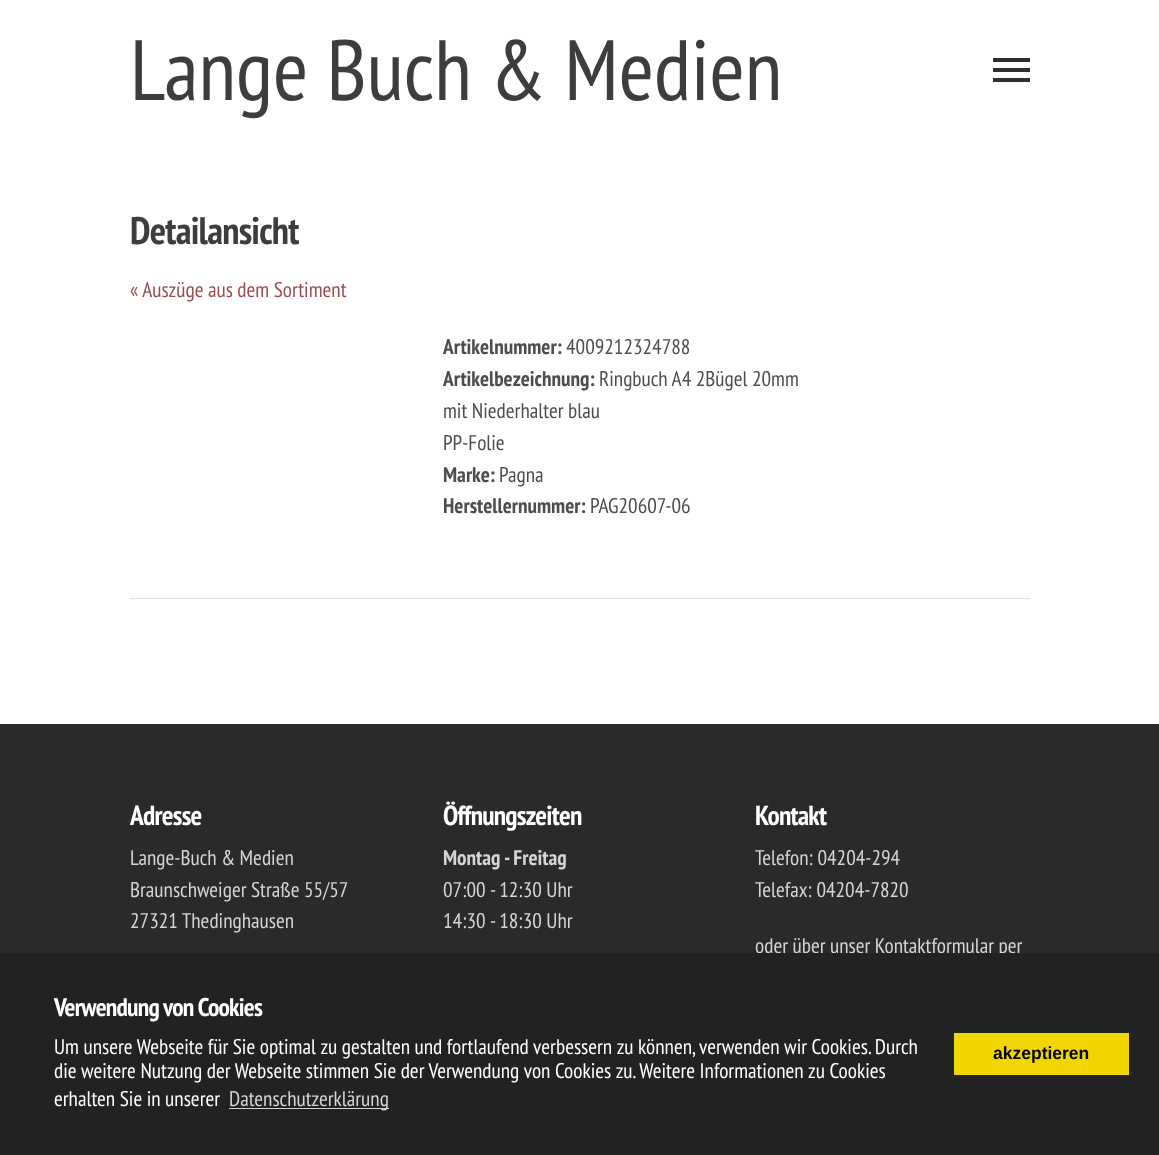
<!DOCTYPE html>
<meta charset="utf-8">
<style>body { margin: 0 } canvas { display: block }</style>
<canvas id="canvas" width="1159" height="1155"></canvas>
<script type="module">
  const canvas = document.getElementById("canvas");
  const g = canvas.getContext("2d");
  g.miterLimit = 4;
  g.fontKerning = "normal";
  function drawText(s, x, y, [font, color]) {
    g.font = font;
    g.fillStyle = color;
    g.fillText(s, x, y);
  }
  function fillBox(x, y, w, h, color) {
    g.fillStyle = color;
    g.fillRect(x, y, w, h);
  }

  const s1 = ["85.5px PT Sans Narrow", "#3D3D3D"];
  const s2 = ["bold 38.25px PT Sans Narrow", "#3D3D3D"];
  const s3 = ["21.25px PT Sans Narrow", "#994C4D"];
  const s4 = ["bold 21.25px PT Sans Narrow", "#4D4D4D"];
  const s5 = ["21.25px PT Sans Narrow", "#4D4D4D"];
  const s6 = ["bold 27.5px PT Sans Narrow", "#FFFFFF"];
  const s7 = ["21.25px PT Sans Narrow", "#D5D5D5"];
  const s8 = ["bold 21.25px PT Sans Narrow", "#D5D5D5"];
  const s9 = ["bold 25.5px PT Sans Narrow", "#FFFFFF"];
  const s10 = ["21.25px PT Sans Narrow", "#FFFFFF"];
  const s11 = ["bold 17.5px Liberation Sans", "#000000"];

  fillBox(0, 0, 1159, 1155, "#FFFFFF");
  drawText("Lange Buch & Medien", 130, 100, s1);
  fillBox(993, 68, 37, 4, "#2E2E2E");
  fillBox(993, 58, 37, 4, "#2E2E2E");
  fillBox(993, 78, 37, 4, "#2E2E2E");
  g.letterSpacing = "-0.75px";
  drawText("Detailansicht", 130, 244, s2);
  g.letterSpacing = "0px";
  drawText("« Auszüge aus dem Sortiment", 130, 297, s3);
  drawText("Artikelnummer:", 443, 354, s4);
  drawText("4009212324788", 566, 354, s5);
  drawText("Artikelbezeichnung:", 443, 386, s4);
  drawText("Ringbuch A4 2Bügel 20mm", 599, 386, s5);
  drawText("mit Niederhalter blau", 443, 418, s5);
  drawText("PP-Folie", 443, 450, s5);
  drawText("Marke:", 443, 482, s4);
  drawText("Pagna", 499, 482, s5);
  drawText("Herstellernummer:", 443, 513, s4);
  drawText("PAG20607-06", 590, 513, s5);
  fillBox(130, 598, 900, 1, "#E4E4E4");
  fillBox(0, 724, 1159, 229, "#282A2C");
  g.letterSpacing = "-0.75px";
  drawText("Adresse", 130, 825, s6);
  g.letterSpacing = "0px";
  drawText("Lange-Buch & Medien", 130, 865, s7);
  drawText("Braunschweiger Straße 55/57", 130, 897, s7);
  drawText("27321 Thedinghausen", 130, 928, s7);
  g.letterSpacing = "-0.75px";
  drawText("Öffnungszeiten", 443, 825, s6);
  g.letterSpacing = "0px";
  drawText("Montag - Freitag", 443, 865, s8);
  drawText("07:00 - 12:30 Uhr", 443, 897, s7);
  drawText("14:30 - 18:30 Uhr", 443, 928, s7);
  g.letterSpacing = "-0.75px";
  drawText("Kontakt", 755, 825, s6);
  g.letterSpacing = "0px";
  drawText("Telefon: 04204-294", 755, 865, s7);
  drawText("Telefax: 04204-7820", 755, 897, s7);
  drawText("oder über unser Kontaktformular per", 755, 953, s7);
  fillBox(0, 953, 1159, 202, "#222222");
  g.letterSpacing = "-0.75px";
  drawText("Verwendung von Cookies", 54, 1016, s9);
  g.letterSpacing = "0px";
  drawText("Um unsere Webseite für Sie optimal zu gestalten und fortlaufend verbessern zu können, verwenden wir Cookies. Durch", 54, 1054, s10);
  drawText("die weitere Nutzung der Webseite stimmen Sie der Verwendung von Cookies zu. Weitere Informationen zu Cookies", 54, 1078, s10);
  drawText("erhalten Sie in unserer", 54, 1106, s10);
  fillBox(229, 1108, 160, 1, "#D3D3D3");
  drawText("Datenschutzerklärung", 229, 1106, s7);
  fillBox(954, 1033, 175, 42, "#F1D600");
  drawText("akzeptieren", 993, 1059, s11);
</script>
